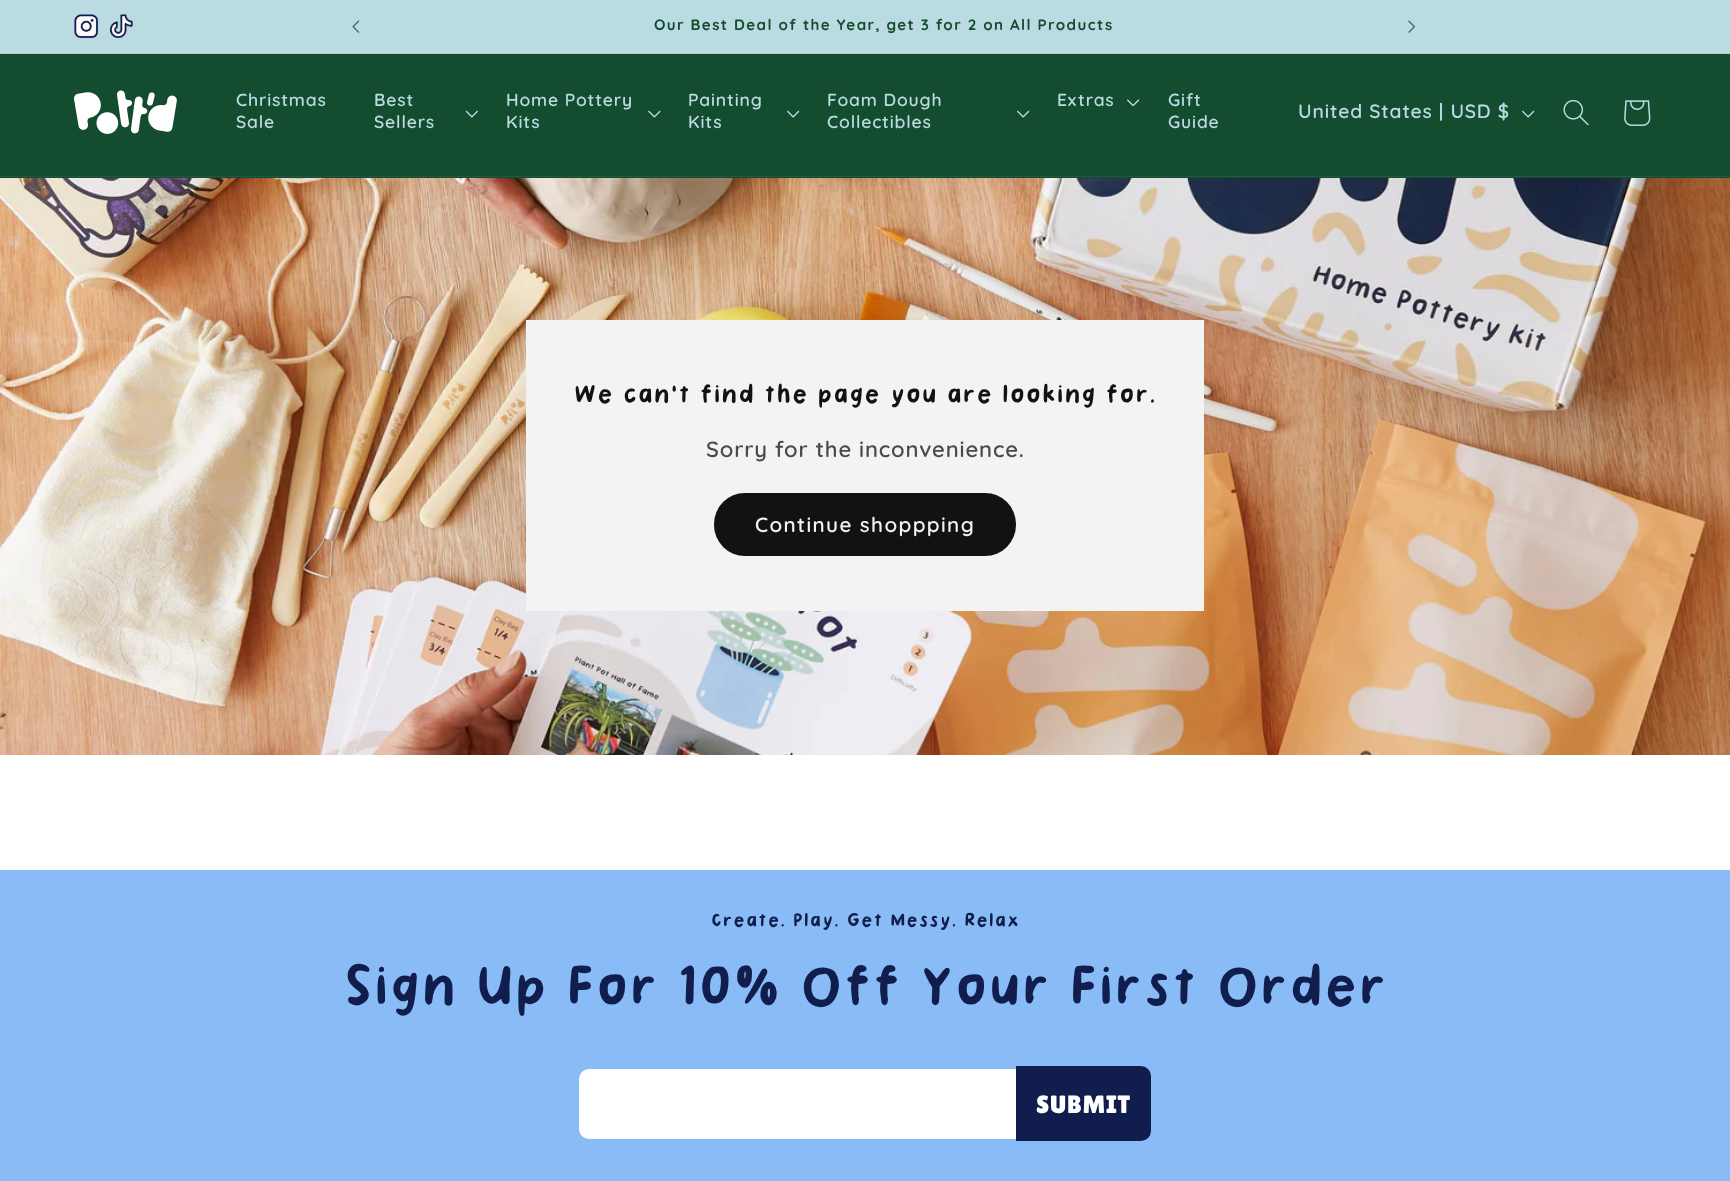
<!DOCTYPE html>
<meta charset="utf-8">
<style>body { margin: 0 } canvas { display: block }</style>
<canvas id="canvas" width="1730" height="1181"></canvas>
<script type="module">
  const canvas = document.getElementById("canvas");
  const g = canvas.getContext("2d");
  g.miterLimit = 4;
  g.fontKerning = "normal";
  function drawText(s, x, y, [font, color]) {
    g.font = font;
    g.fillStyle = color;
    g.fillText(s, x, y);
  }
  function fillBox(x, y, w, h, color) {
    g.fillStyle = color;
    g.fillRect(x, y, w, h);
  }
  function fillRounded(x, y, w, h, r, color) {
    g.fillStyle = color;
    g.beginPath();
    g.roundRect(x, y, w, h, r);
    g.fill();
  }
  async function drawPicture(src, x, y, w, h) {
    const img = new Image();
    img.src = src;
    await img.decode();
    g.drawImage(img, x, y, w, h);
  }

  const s1 = ["bold 15.1px Quicksand", "#144C2F"];
  const s2 = ["600 17.5px Quicksand", "#BBDBE2"];
  const s3 = ["600 19.25px Quicksand", "#BBDBE2"];
  const s4 = ["33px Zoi", "#121212"];
  const s5 = ["600 22px Quicksand", "#4A4A4A"];
  const s6 = ["600 20.6px Quicksand", "#F3F3F3"];
  const s7 = ["24.75px Zoi", "#111E4D"];
  const s8 = ["71.5px Zoi", "#111E4D"];
  const s9 = ["25px Lilita One", "#FFFFFF"];

  fillBox(0, 0, 1730, 1181, "#FFFFFF");
  fillBox(0, 0, 1730, 53, "#BBDBE2");
  fillBox(0, 53, 1730, 1, "#AED0D4");
  await drawPicture("pic1.png", 74, 14, 24, 24);
  await drawPicture("pic2.png", 109, 14, 24, 24);
  await drawPicture("pic3.png", 352, 20, 8, 13);
  g.letterSpacing = "1.38px";
  drawText("Our Best Deal of the Year, get 3 for 2 on All Products", 654, 30, s1);
  await drawPicture("pic4.png", 1408, 20, 7, 13);
  fillBox(0, 54, 1730, 124, "#144C2F");
  fillBox(0, 176, 1730, 1, "#21573D");
  await drawPicture("pic5.png", 74, 90, 103, 44);
  g.letterSpacing = "0.85px";
  drawText("Christmas", 236, 106, s2);
  drawText("Sale", 236, 128, s2);
  drawText("Best", 374, 106, s2);
  drawText("Sellers", 374, 128, s2);
  await drawPicture("pic6.png", 465, 110, 13, 8);
  drawText("Home Pottery", 506, 106, s2);
  drawText("Kits", 506, 128, s2);
  await drawPicture("pic7.png", 648, 110, 13, 8);
  drawText("Painting", 688, 106, s2);
  drawText("Kits", 688, 128, s2);
  await drawPicture("pic8.png", 787, 110, 13, 8);
  drawText("Foam Dough", 827, 106, s2);
  drawText("Collectibles", 827, 128, s2);
  await drawPicture("pic8.png", 1017, 110, 13, 8);
  drawText("Extras", 1057, 106, s2);
  await drawPicture("pic9.png", 1127, 99, 13, 7);
  drawText("Gift", 1168, 106, s2);
  drawText("Guide", 1168, 128, s2);
  drawText("United States | USD $", 1298, 118, s3);
  await drawPicture("pic8.png", 1522, 110, 13, 8);
  await drawPicture("pic10.png", 1563, 99, 26, 27);
  await drawPicture("pic11.png", 1624, 100, 27, 26);
  await drawPicture("pic12.png", 0, 178, 1730, 577);
  fillBox(526, 320, 678, 291, "#F3F3F3");
  drawText("We can't find the page you are looking for.", 574, 406, s4);
  drawText("Sorry for the inconvenience.", 706, 457, s5);
  fillRounded(714, 493, 302, 63, 31, "#121212");
  g.letterSpacing = "1.38px";
  drawText("Continue shoppping", 755, 532, s6);
  fillBox(0, 870, 1730, 311, "#89BCF6");
  g.letterSpacing = "0.85px";
  drawText("Create. Play. Get Messy. Relax", 711, 929, s7);
  drawText("Sign Up For 10% Off Your First Order", 344, 1012, s8);
  g.fillStyle = "#FFFFFF";
  g.beginPath();
  g.roundRect(579, 1069, 437, 70, [10, 0, 0, 10]);
  g.fill();
  g.fillStyle = "#111E4D";
  g.beginPath();
  g.roundRect(1016, 1066, 135, 75, [0, 10, 10, 0]);
  g.fill();
  drawText("SUBMIT", 1036, 1113, s9);
</script>
